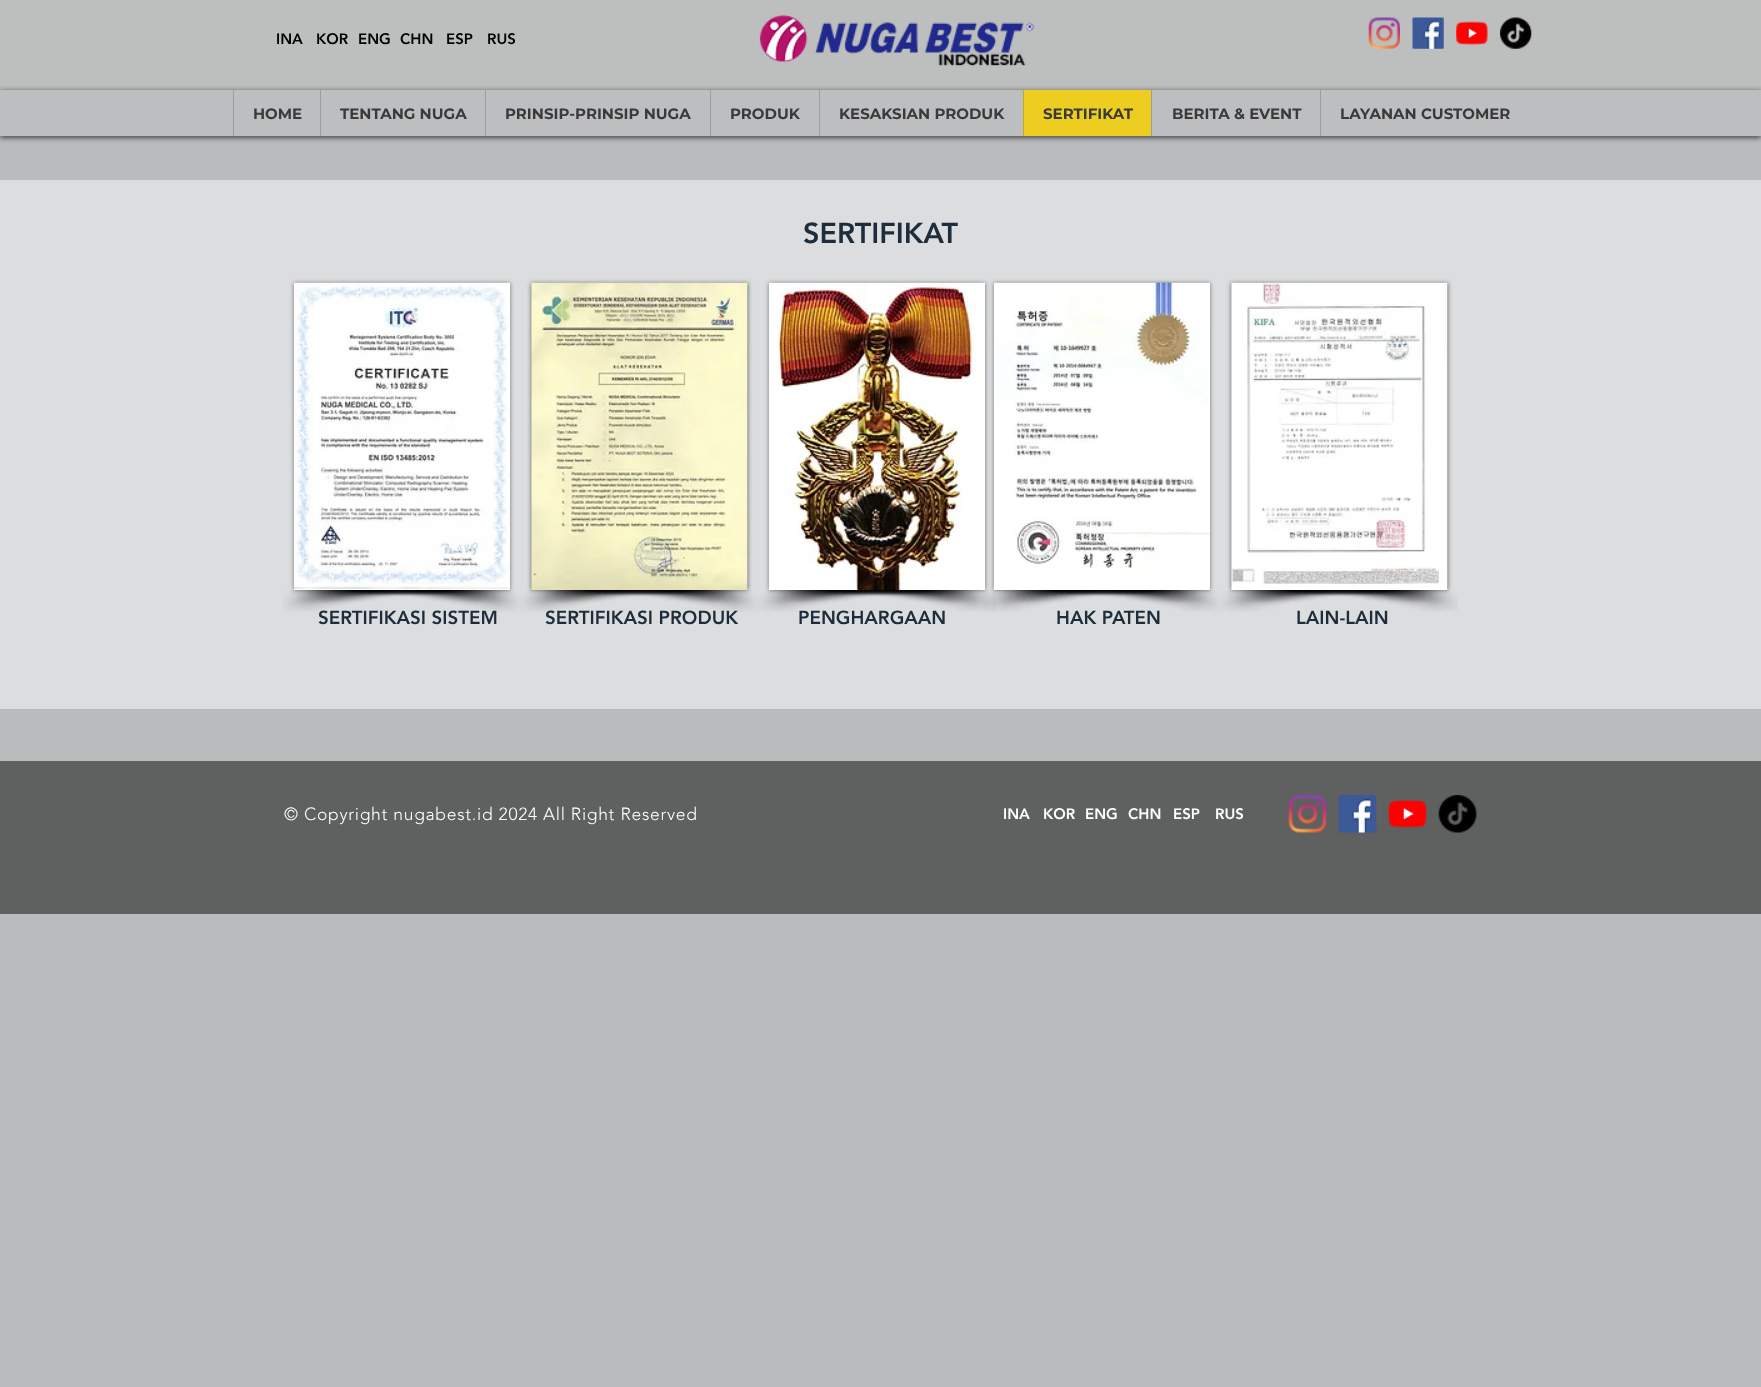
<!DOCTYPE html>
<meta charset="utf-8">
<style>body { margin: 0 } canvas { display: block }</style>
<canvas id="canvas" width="1761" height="1387"></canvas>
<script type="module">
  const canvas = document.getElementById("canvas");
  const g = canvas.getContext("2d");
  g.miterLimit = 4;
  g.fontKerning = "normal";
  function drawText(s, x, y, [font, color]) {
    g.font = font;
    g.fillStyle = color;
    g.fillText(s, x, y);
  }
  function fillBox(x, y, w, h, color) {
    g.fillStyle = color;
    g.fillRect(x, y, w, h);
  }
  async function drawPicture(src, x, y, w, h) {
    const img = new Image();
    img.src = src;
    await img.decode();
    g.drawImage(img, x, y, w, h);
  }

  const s1 = ["900 15px 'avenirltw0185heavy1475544'", "#000000"];
  const s2 = ["bold 15px Montserrat", "#3B3A3A"];
  const s3 = ["900 28.75px 'avenirltw0185heavy1475544'", "#1E2D3B"];
  const s4 = ["900 18.75px 'avenirltw0185heavy1475544'", "#1E2D3B"];
  const s5 = ["300 17.5px 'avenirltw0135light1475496'", "#FFFFFF"];
  const s6 = ["900 15px 'avenirltw0185heavy1475544'", "#FFFFFF"];

  fillBox(0, 0, 1761, 1387, "#B9BBBD");
  fillBox(0, 0, 1761, 86, "#BDBFBF");
  drawText("INA", 276, 44, s1);
  drawText("KOR", 316, 44, s1);
  drawText("ENG", 358, 44, s1);
  drawText("CHN", 400, 44, s1);
  drawText("ESP", 446, 44, s1);
  drawText("RUS", 487, 44, s1);
  await drawPicture("pic1.png", 759, 14, 275, 52);
  await drawPicture("pic2.png", 1368, 17, 32, 32);
  await drawPicture("pic3.png", 1412, 17, 32, 32);
  await drawPicture("pic4.png", 1456, 21, 32, 25);
  await drawPicture("pic5.png", 1500, 17, 32, 32);
  g.fillStyle = "rgba(0, 0, 0, 0.6)";
  g.filter = "blur(2.5px)";
  g.beginPath();
  g.rect(0, 91, 1761, 47);
  g.fill();
  g.filter = "none";
  fillBox(0, 90, 1761, 46, "#BCBEBF");
  fillBox(233, 90, 1, 46, "#9C9D9E");
  drawText("HOME", 253, 119, s2);
  fillBox(320, 90, 1, 46, "#9C9D9E");
  drawText("TENTANG NUGA", 340, 119, s2);
  fillBox(485, 90, 1, 46, "#9C9D9E");
  drawText("PRINSIP-PRINSIP NUGA", 505, 119, s2);
  fillBox(710, 90, 1, 46, "#9C9D9E");
  drawText("PRODUK", 730, 119, s2);
  fillBox(819, 90, 1, 46, "#9C9D9E");
  drawText("KESAKSIAN PRODUK", 839, 119, s2);
  fillBox(1024, 90, 127, 46, "#EDCD1F");
  fillBox(1023, 90, 1, 46, "#C1A826");
  drawText("SERTIFIKAT", 1043, 119, s2);
  fillBox(1151, 90, 1, 46, "#9C9D9E");
  drawText("BERITA & EVENT", 1172, 119, s2);
  fillBox(1320, 90, 1, 46, "#9C9D9E");
  drawText("LAYANAN CUSTOMER", 1340, 119, s2);
  fillBox(0, 180, 1761, 529, "#DCDDDF");
  drawText("SERTIFIKAT", 803, 243, s3);
  g.fillStyle = "rgba(0, 0, 0, 0.5)";
  g.filter = "blur(2px)";
  g.beginPath();
  g.rect(294, 283, 216, 307);
  g.fill();
  g.filter = "none";
  await drawPicture("pic6.png", 293, 282, 217, 308);
  await drawPicture("pic7.png", 283, 590, 192, 22);
  await drawPicture("pic8.png", 366, 590, 155, 22);
  g.filter = "blur(2px)";
  g.beginPath();
  g.rect(531, 283, 217, 307);
  g.fill();
  g.filter = "none";
  await drawPicture("pic9.png", 531, 282, 217, 308);
  await drawPicture("pic10.png", 521, 590, 191, 22);
  await drawPicture("pic11.png", 604, 590, 154, 22);
  g.filter = "blur(2px)";
  g.beginPath();
  g.rect(769, 283, 216, 307);
  g.fill();
  g.filter = "none";
  await drawPicture("pic12.png", 768, 282, 217, 308);
  await drawPicture("pic13.png", 758, 590, 192, 22);
  await drawPicture("pic14.png", 841, 590, 155, 22);
  g.filter = "blur(2px)";
  g.beginPath();
  g.rect(994, 283, 216, 307);
  g.fill();
  g.filter = "none";
  await drawPicture("pic15.png", 993, 282, 217, 308);
  await drawPicture("pic16.png", 983, 590, 192, 22);
  await drawPicture("pic17.png", 1066, 590, 155, 22);
  g.filter = "blur(2px)";
  g.beginPath();
  g.rect(1231, 283, 217, 307);
  g.fill();
  g.filter = "none";
  await drawPicture("pic18.png", 1231, 282, 217, 308);
  await drawPicture("pic10.png", 1221, 590, 191, 22);
  await drawPicture("pic19.png", 1304, 590, 154, 22);
  drawText("SERTIFIKASI SISTEM", 318, 624, s4);
  drawText("SERTIFIKASI PRODUK", 545, 624, s4);
  drawText("PENGHARGAAN", 798, 624, s4);
  drawText("HAK PATEN", 1056, 624, s4);
  drawText("LAIN-LAIN", 1296, 624, s4);
  fillBox(0, 761, 1761, 153, "#5F6060");
  g.letterSpacing = "0.7px";
  drawText("© Copyright nugabest.id 2024 All Right Reserved", 284, 820, s5);
  g.letterSpacing = "0px";
  drawText("INA", 1003, 819, s6);
  drawText("KOR", 1043, 819, s6);
  drawText("ENG", 1085, 819, s6);
  drawText("CHN", 1128, 819, s6);
  drawText("ESP", 1173, 819, s6);
  drawText("RUS", 1215, 819, s6);
  await drawPicture("pic20.png", 1288, 795, 39, 38);
  await drawPicture("pic21.png", 1338, 795, 39, 38);
  await drawPicture("pic22.png", 1388, 799, 39, 29);
  await drawPicture("pic23.png", 1438, 795, 39, 38);
</script>
